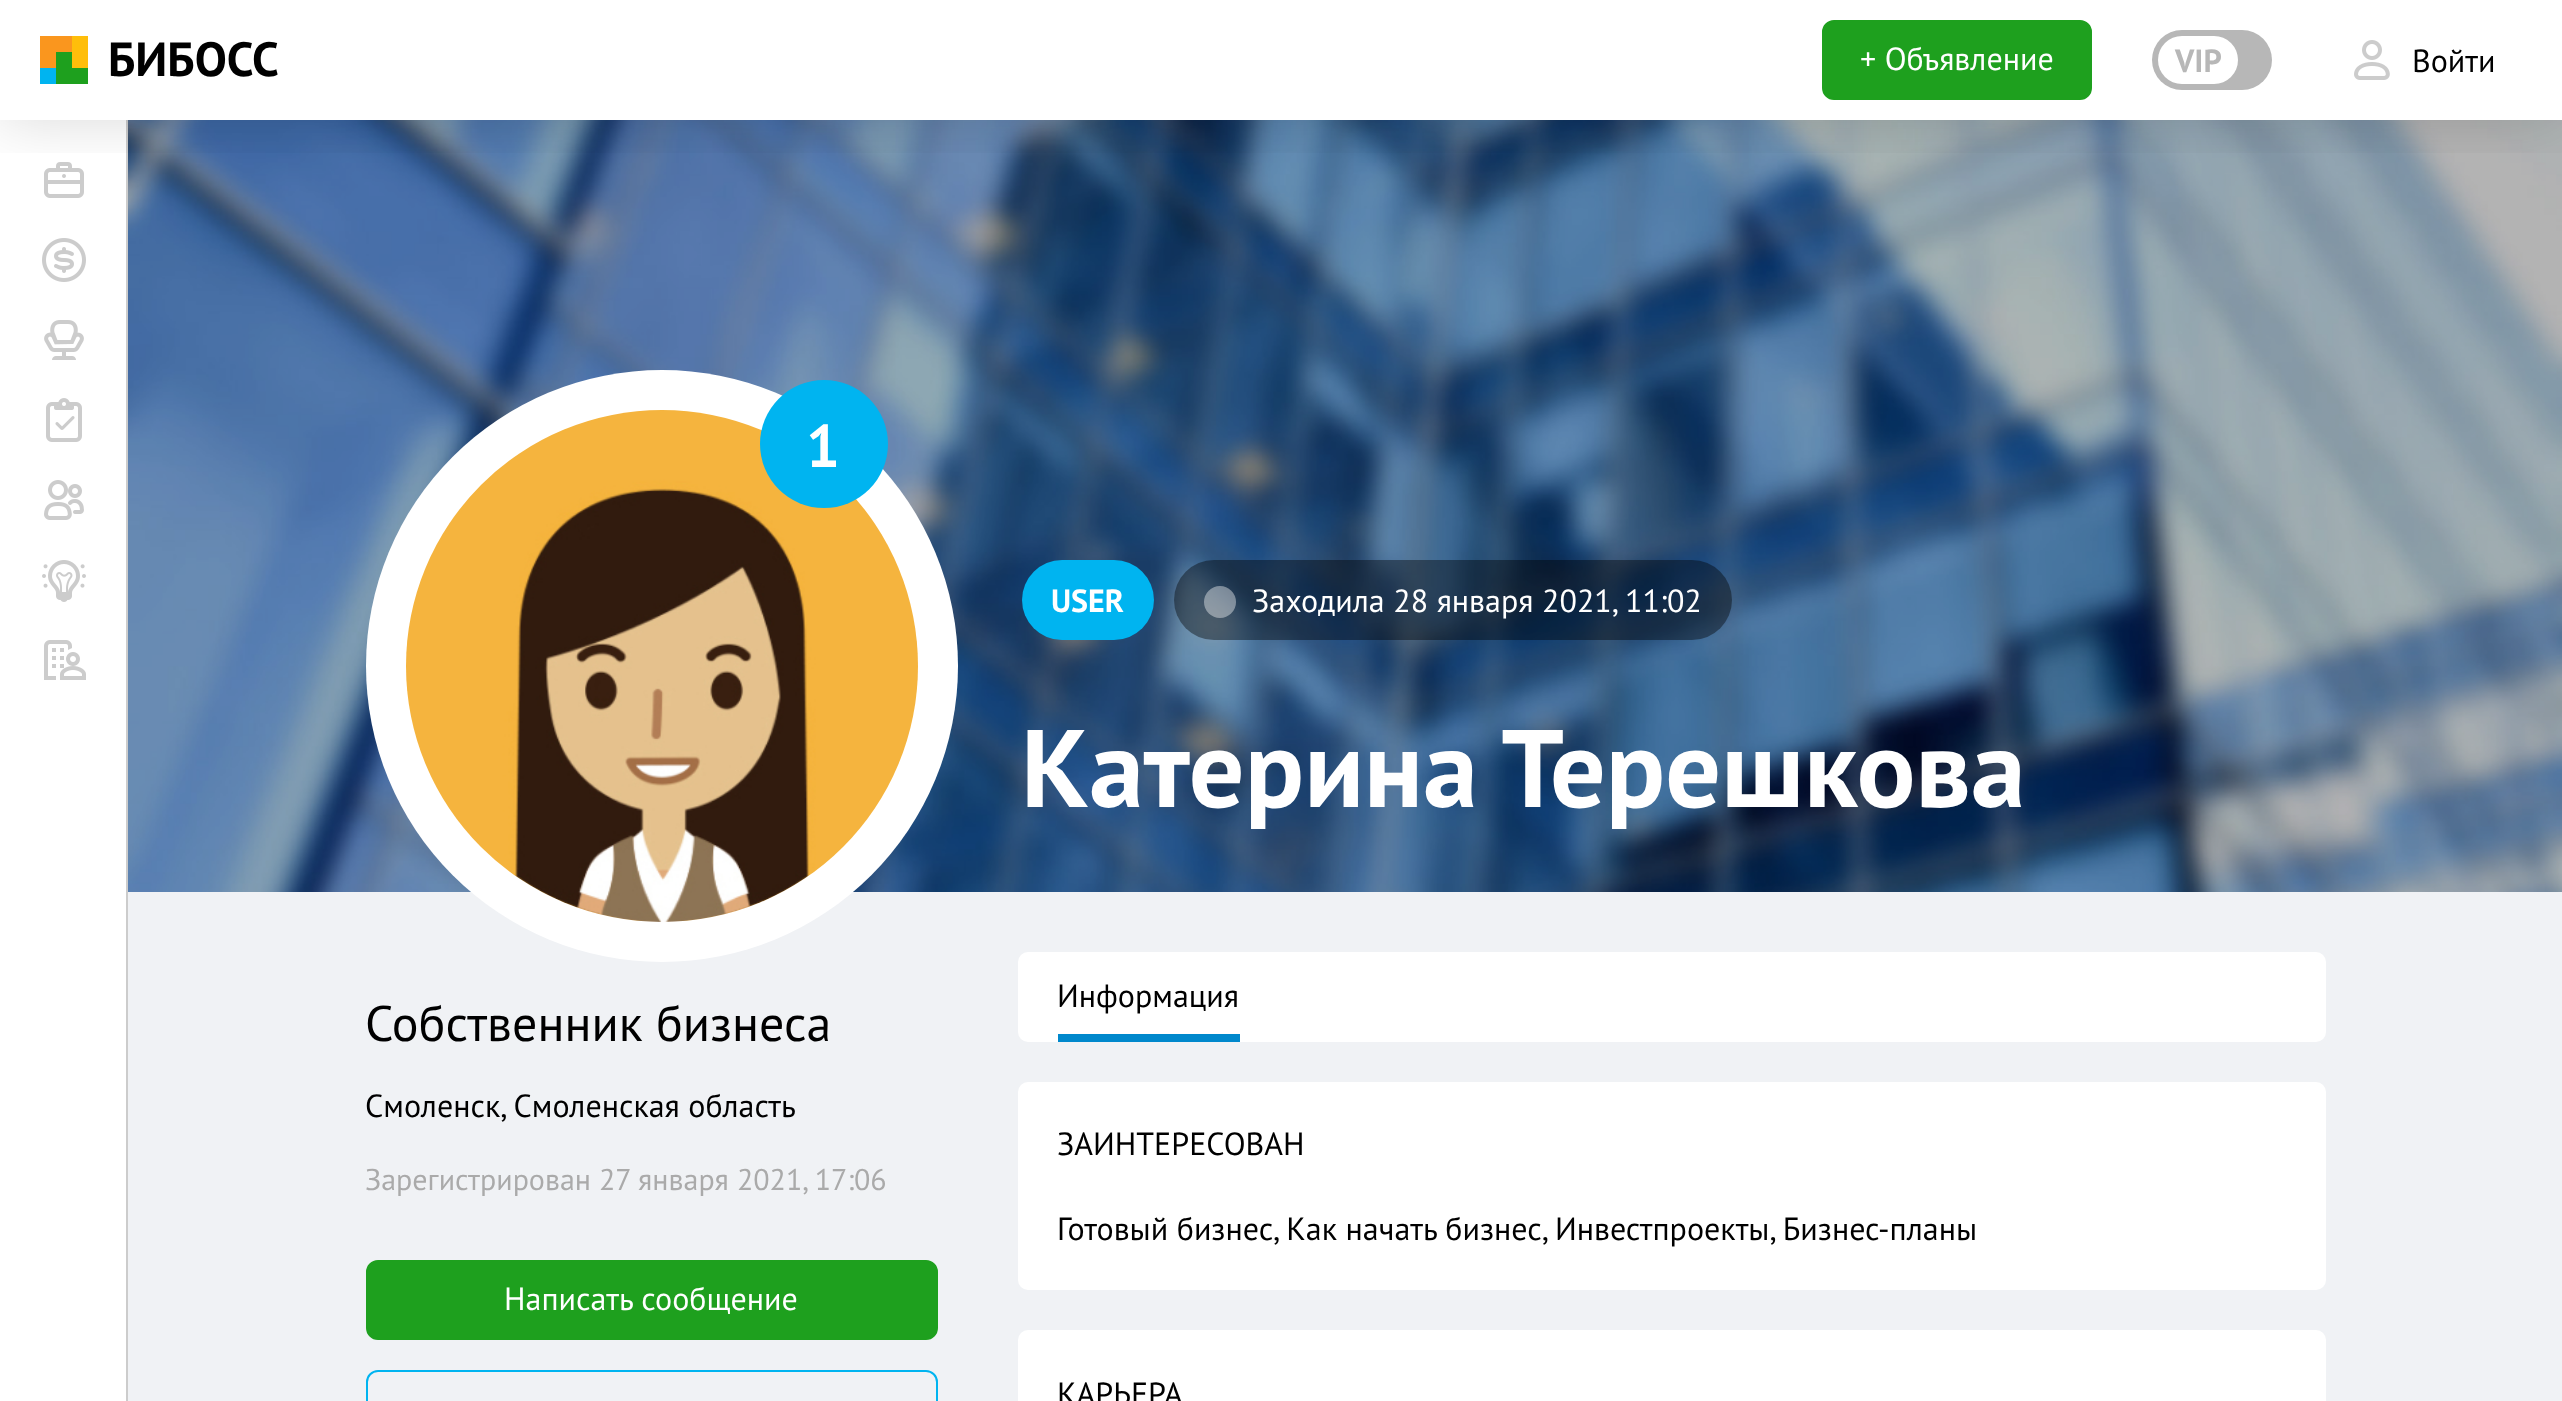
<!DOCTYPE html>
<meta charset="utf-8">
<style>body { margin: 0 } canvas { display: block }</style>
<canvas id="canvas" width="2562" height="1401"></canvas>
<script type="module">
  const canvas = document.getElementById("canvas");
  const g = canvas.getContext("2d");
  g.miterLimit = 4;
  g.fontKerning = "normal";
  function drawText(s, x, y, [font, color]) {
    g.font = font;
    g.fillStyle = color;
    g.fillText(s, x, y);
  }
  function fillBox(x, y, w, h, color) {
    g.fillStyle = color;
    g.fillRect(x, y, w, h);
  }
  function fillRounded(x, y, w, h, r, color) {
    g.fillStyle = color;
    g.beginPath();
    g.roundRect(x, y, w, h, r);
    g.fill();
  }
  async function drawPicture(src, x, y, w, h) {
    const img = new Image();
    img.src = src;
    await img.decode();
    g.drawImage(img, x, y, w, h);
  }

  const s1 = ["bold 48px PT Sans", "#000000"];
  const s2 = ["32px PT Sans", "#FFFFFF"];
  const s3 = ["bold 32px PT Sans", "#B7B7B7"];
  const s4 = ["32px PT Sans", "#000000"];
  const s5 = ["bold 60px PT Sans", "#FFFFFF"];
  const s6 = ["bold 32px PT Sans", "#FFFFFF"];
  const s7 = ["bold 110px PT Sans", "#FFFFFF"];
  const s8 = ["50px PT Sans", "#000000"];
  const s9 = ["30px PT Sans", "#AAAAAA"];

  fillBox(0, 0, 2562, 1401, "#FFFFFF");
  fillBox(126, 120, 2, 1281, "#CCCCCC");
  await drawPicture("pic3.png", 44, 162, 40, 36);
  await drawPicture("pic10.png", 128, 120, 2434, 772);
  g.save();
  g.beginPath();
  g.rect(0, 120, 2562, 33);
  g.clip();
  g.fillStyle = "rgba(0, 0, 0, 0.15)";
  g.filter = "blur(30px)";
  g.beginPath();
  g.rect(0, 0, 2562, 120);
  g.fill();
  g.filter = "none";
  g.restore();
  await drawPicture("pic1.png", 40, 36, 48, 48);
  drawText("БИБОСС", 108, 76, s1);
  g.fillStyle = "#1EA01E";
  g.beginPath();
  g.roundRect(1823, 21, 268, 78, 11);
  g.fill();
  g.strokeStyle = "#1EA01E";
  g.lineWidth = 2;
  g.stroke();
  drawText("+ Объявление", 1860, 70, s2);
  fillRounded(2152, 30, 120, 60, 30, "#B7B7B7");
  fillRounded(2158, 36, 80, 48, 24, "#FFFFFF");
  drawText("VIP", 2175, 72, s3);
  await drawPicture("pic2.png", 2354, 40, 36, 40);
  drawText("Войти", 2412, 72, s4);
  await drawPicture("pic4.png", 42, 238, 44, 44);
  await drawPicture("pic5.png", 44, 320, 40, 40);
  await drawPicture("pic6.png", 46, 398, 36, 44);
  await drawPicture("pic7.png", 44, 480, 40, 40);
  await drawPicture("pic8.png", 42, 560, 44, 42);
  await drawPicture("pic9.png", 44, 640, 42, 40);
  fillBox(128, 892, 2434, 509, "#F0F2F5");
  g.fillStyle = "#FFFFFF";
  g.beginPath();
  g.arc(662, 666, 296, 0, Math.PI * 2);
  g.fill();
  await drawPicture("pic11.png", 406, 410, 512, 512);
  g.fillStyle = "#00B4F0";
  g.beginPath();
  g.arc(824, 444, 64, 0, Math.PI * 2);
  g.fill();
  drawText("1", 806, 467, s5);
  fillRounded(1022, 560, 132, 80, 40, "#00B4F0");
  drawText("USER", 1051, 612, s6);
  fillRounded(1174, 560, 558, 80, 40, "rgba(0, 0, 0, 0.4)");
  g.fillStyle = "rgba(255, 255, 255, 0.4)";
  g.beginPath();
  g.arc(1220, 602, 16, 0, Math.PI * 2);
  g.fill();
  drawText("Заходила 28 января 2021, 11:02", 1252, 612, s2);
  drawText("Катерина Терешкова", 1021, 807, s7);
  drawText("Собственник бизнеса", 365, 1041, s8);
  drawText("Смоленск, Смоленская область", 365, 1117, s4);
  drawText("Зарегистрирован 27 января 2021, 17:06", 365, 1190, s9);
  g.fillStyle = "#1EA01E";
  g.beginPath();
  g.roundRect(367, 1261, 570, 78, 11);
  g.fill();
  g.stroke();
  drawText("Написать сообщение", 504, 1310, s2);
  g.beginPath();
  g.roundRect(367, 1371, 570, 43, 11);
  g.strokeStyle = "#00B4F0";
  g.stroke();
  fillRounded(1018, 952, 1308, 90, 10, "#FFFFFF");
  fillBox(1058, 1034, 182, 8, "#0088CC");
  drawText("Информация", 1057, 1007, s4);
  fillRounded(1018, 1082, 1308, 208, 10, "#FFFFFF");
  drawText("ЗАИНТЕРЕСОВАН", 1057, 1155, s4);
  drawText("Готовый бизнес, Как начать бизнес, Инвестпроекты, Бизнес-планы", 1057, 1240, s4);
  fillRounded(1018, 1330, 1308, 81, 10, "#FFFFFF");
  drawText("КАРЬЕРА", 1057, 1405, s4);
</script>
